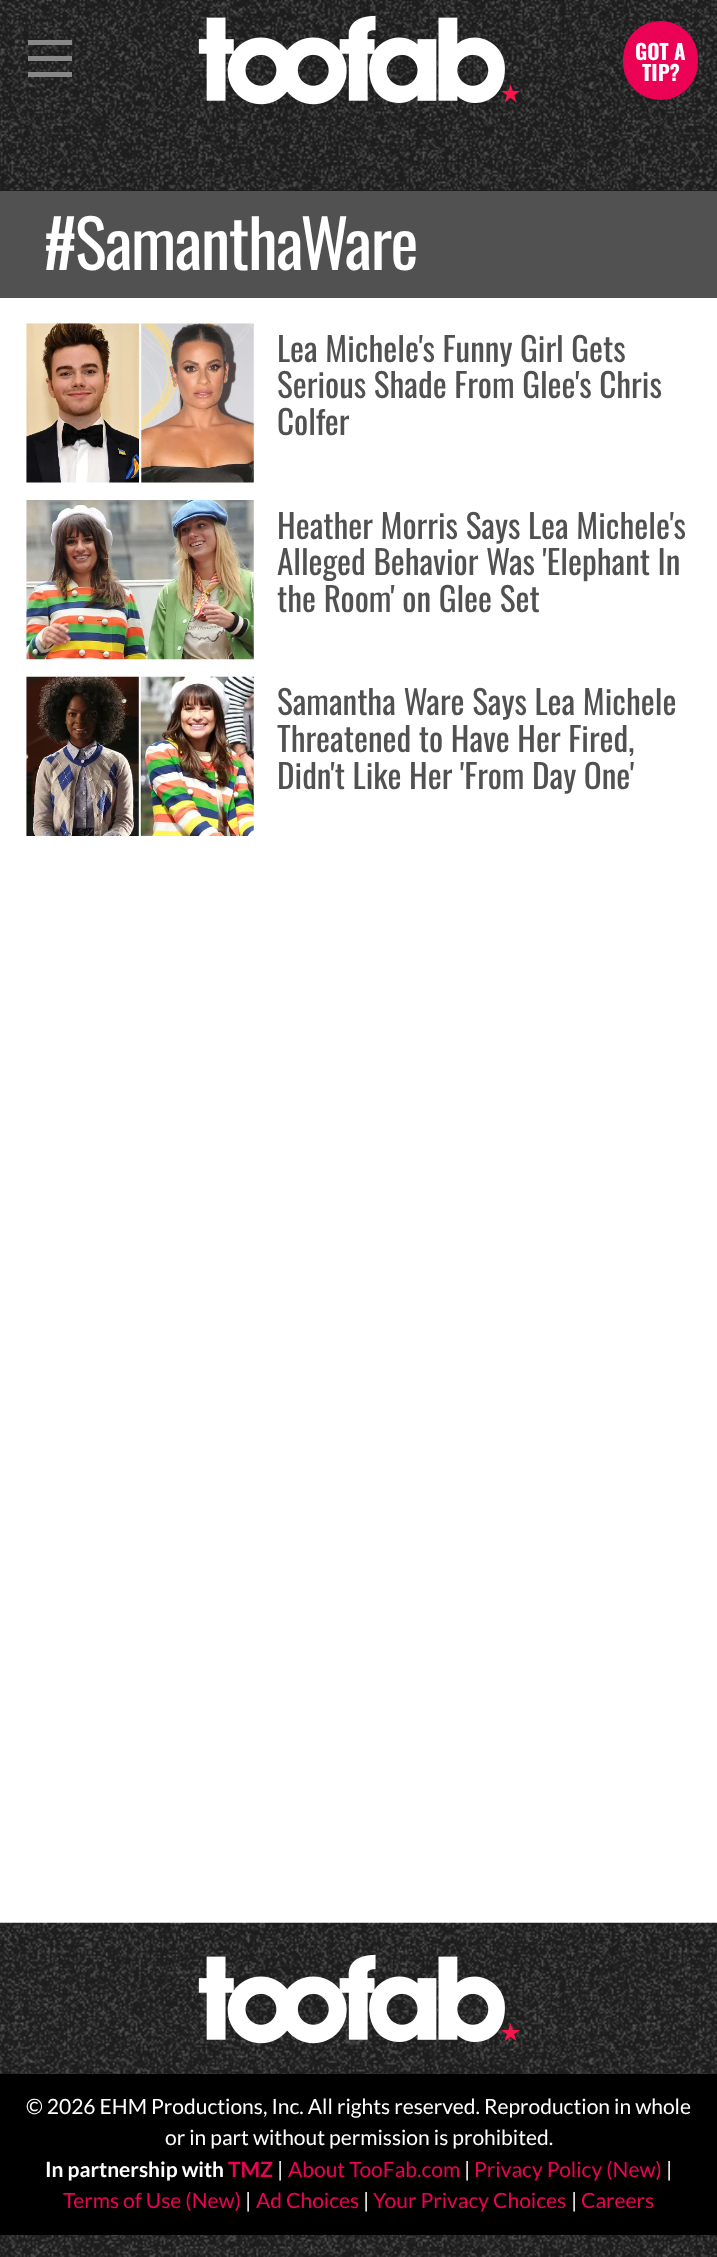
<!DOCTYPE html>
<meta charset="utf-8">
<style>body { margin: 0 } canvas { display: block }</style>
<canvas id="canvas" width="717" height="2257"></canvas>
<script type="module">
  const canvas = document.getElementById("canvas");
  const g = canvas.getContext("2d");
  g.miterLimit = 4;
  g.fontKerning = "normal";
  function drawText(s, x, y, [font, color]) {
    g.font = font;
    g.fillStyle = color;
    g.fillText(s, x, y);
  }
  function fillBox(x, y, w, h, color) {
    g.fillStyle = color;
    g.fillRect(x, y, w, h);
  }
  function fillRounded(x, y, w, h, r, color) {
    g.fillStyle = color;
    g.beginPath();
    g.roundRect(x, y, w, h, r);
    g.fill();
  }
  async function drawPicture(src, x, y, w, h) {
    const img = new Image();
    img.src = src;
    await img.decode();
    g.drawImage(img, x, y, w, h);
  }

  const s1 = ["bold 21px Oswald", "#FFFFFF"];
  const s2 = ["66.5px Oswald", "#FFFFFF"];
  const s3 = ["33.25px Oswald", "#515151"];
  const s4 = ["21px Lato", "#FFFFFF"];
  const s5 = ["bold 21px Lato", "#FFFFFF"];
  const s6 = ["bold 21px Lato", "#EB0254"];
  const s7 = ["21px Lato", "#EB0254"];

  fillBox(0, 0, 717, 2257, "#FFFFFF");
  fillBox(0, 190, 717, 1, "#1D1D1D");
  await drawPicture("pic1.png", 0, 0, 717, 191);
  fillBox(28, 40, 44, 5, "#888888");
  fillBox(28, 56, 44, 5, "#888888");
  fillBox(28, 72, 44, 5, "#888888");
  await drawPicture("pic2.png", 198, 15, 322, 90);
  fillRounded(623, 21, 75, 79, 37.5, "#EB0254");
  drawText("GOT A", 635, 60, s1);
  drawText("TIP?", 642, 81, s1);
  fillBox(0, 191, 717, 107, "#515151");
  g.letterSpacing = "-1.3px";
  drawText("#SamanthaWare", 44, 270, s2);
  await drawPicture("pic3.png", 26, 323, 228, 160);
  g.letterSpacing = "0px";
  drawText("Lea Michele's Funny Girl Gets", 277, 362, s3);
  drawText("Serious Shade From Glee's Chris", 277, 398, s3);
  drawText("Colfer", 277, 435, s3);
  await drawPicture("pic4.png", 26, 500, 228, 160);
  drawText("Heather Morris Says Lea Michele's", 277, 539, s3);
  drawText("Alleged Behavior Was 'Elephant In", 277, 575, s3);
  drawText("the Room' on Glee Set", 277, 612, s3);
  await drawPicture("pic5.png", 26, 676, 228, 160);
  drawText("Samantha Ware Says Lea Michele", 277, 715, s3);
  drawText("Threatened to Have Her Fired,", 277, 752, s3);
  drawText("Didn't Like Her 'From Day One'", 277, 789, s3);
  await drawPicture("pic6.png", 0, 1922, 717, 335);
  await drawPicture("pic7.png", 198, 1954, 322, 90);
  fillBox(0, 2074, 717, 161, "#000000");
  drawText("© 2026 EHM Productions, Inc. All rights reserved. Reproduction in whole", 26, 2114, s4);
  drawText("or in part without permission is prohibited.", 165, 2145, s4);
  drawText("In partnership with", 45, 2177, s5);
  drawText("TMZ", 228, 2177, s6);
  drawText("|", 277, 2177, s4);
  drawText("About TooFab.com", 288, 2177, s7);
  drawText("|", 464, 2177, s4);
  drawText("Privacy Policy (New)", 474, 2177, s7);
  drawText("|", 666, 2177, s4);
  drawText("Terms of Use (New)", 63, 2208, s7);
  drawText("|", 245, 2208, s4);
  drawText("Ad Choices", 256, 2208, s7);
  drawText("|", 363, 2208, s4);
  drawText("Your Privacy Choices", 373, 2208, s7);
  drawText("|", 571, 2208, s4);
  drawText("Careers", 581, 2208, s7);
</script>
